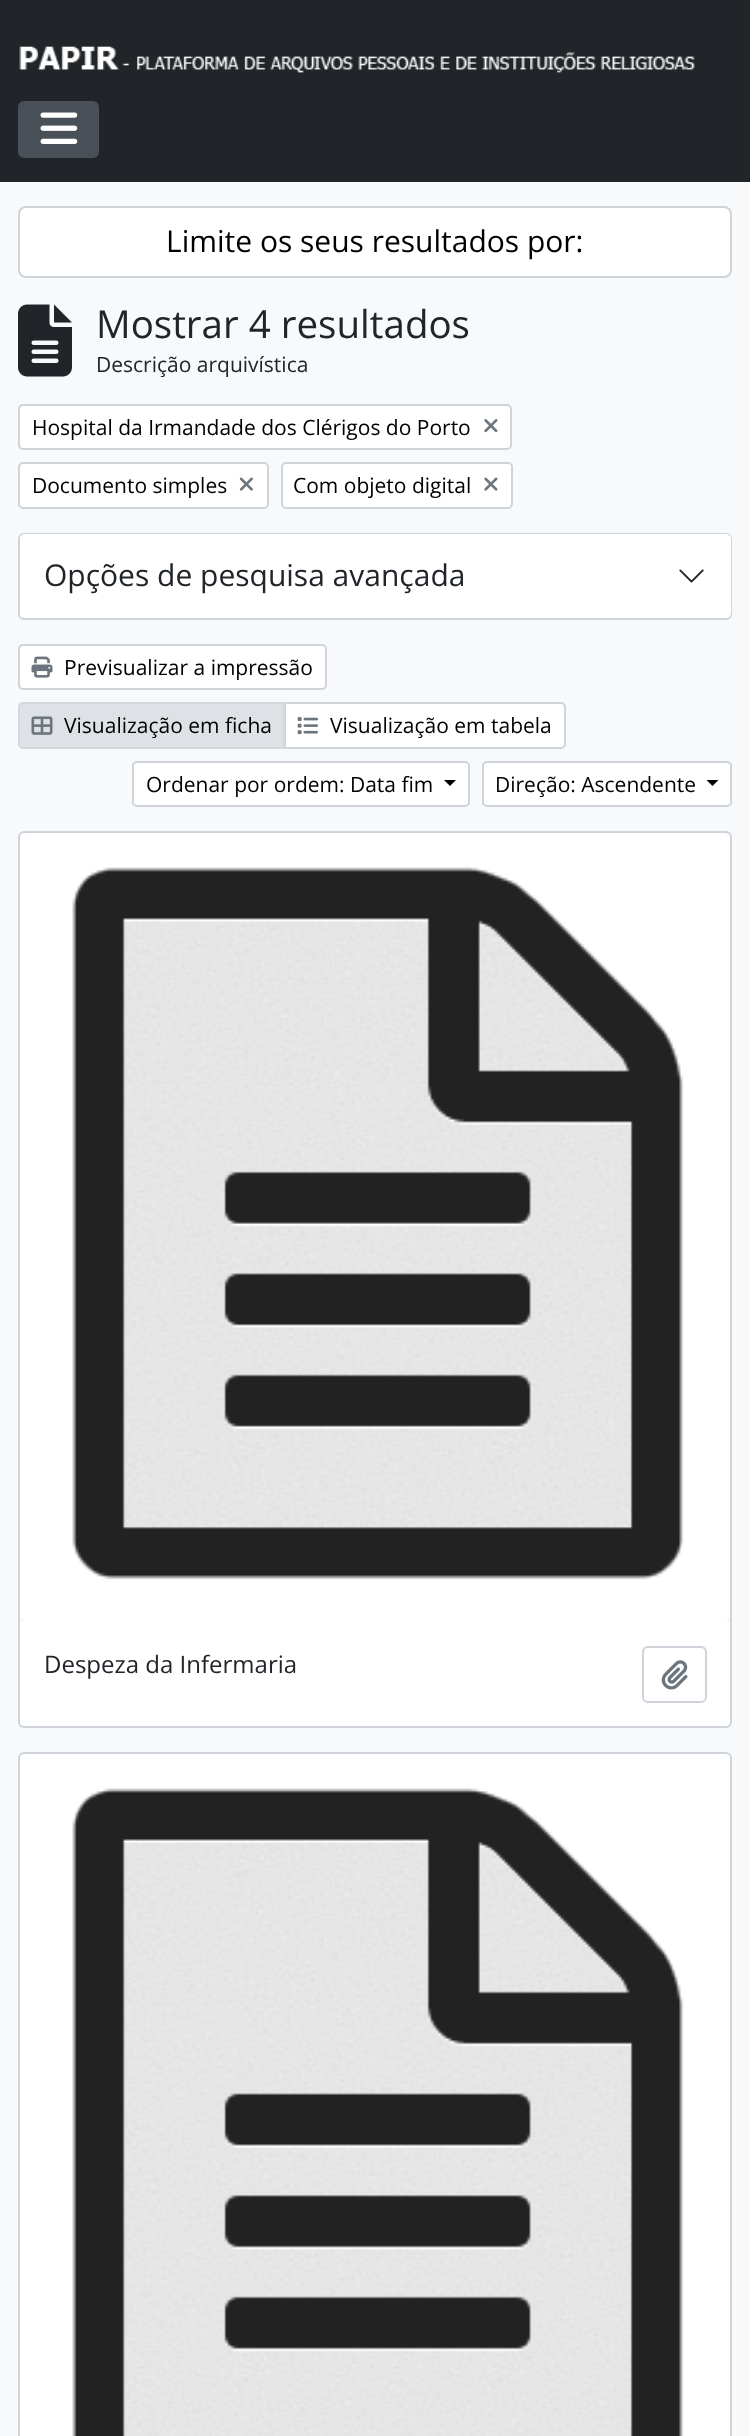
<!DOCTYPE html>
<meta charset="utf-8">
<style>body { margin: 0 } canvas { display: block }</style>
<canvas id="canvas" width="750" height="2436"></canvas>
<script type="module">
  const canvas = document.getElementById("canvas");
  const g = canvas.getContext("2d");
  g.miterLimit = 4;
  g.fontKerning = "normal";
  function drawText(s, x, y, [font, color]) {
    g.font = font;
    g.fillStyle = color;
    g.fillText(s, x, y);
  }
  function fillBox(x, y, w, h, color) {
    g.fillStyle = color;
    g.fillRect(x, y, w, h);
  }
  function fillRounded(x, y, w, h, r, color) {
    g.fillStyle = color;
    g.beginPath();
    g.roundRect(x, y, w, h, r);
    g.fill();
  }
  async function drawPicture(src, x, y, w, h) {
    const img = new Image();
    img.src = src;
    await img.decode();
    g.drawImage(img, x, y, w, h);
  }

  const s1 = ["30px Open Sans", "#000000"];
  const s2 = ["38.5px Open Sans", "#212529"];
  const s3 = ["21px Open Sans", "#212529"];
  const s4 = ["21px Open Sans", "#000000"];
  const s5 = ["30px Open Sans", "#212529"];
  const s6 = ["24px Open Sans", "#212529"];

  fillBox(0, 0, 750, 2436, "#F8F9FA");
  fillBox(0, 0, 750, 182, "#212529");
  await drawPicture("pic1.png", 19, 46, 676, 27);
  g.fillStyle = "#495057";
  g.beginPath();
  g.roundRect(19, 102, 79, 55, 5);
  g.fill();
  g.strokeStyle = "#495057";
  g.lineWidth = 2;
  g.stroke();
  await drawPicture("pic2.png", 40, 112, 38, 32);
  g.fillStyle = "#FFFFFF";
  g.beginPath();
  g.roundRect(19, 207, 712, 70, 7);
  g.fill();
  g.strokeStyle = "#CED4DA";
  g.stroke();
  drawText("Limite os seus resultados por:", 166, 252, s1);
  await drawPicture("pic3.png", 18, 304, 54, 73);
  drawText("Mostrar 4 resultados", 96, 338, s2);
  drawText("Descrição arquivística", 96, 372, s3);
  g.fillStyle = "#FFFFFF";
  g.beginPath();
  g.roundRect(19, 405, 492, 44, 4);
  g.fill();
  g.stroke();
  drawText("Hospital da Irmandade dos Clérigos do Porto", 32, 435, s4);
  await drawPicture("pic4.png", 484, 419, 14, 14);
  g.fillStyle = "#FFFFFF";
  g.beginPath();
  g.roundRect(19, 463, 249, 45, 4);
  g.fill();
  g.stroke();
  drawText("Documento simples", 32, 493, s4);
  await drawPicture("pic5.png", 239, 477, 14, 14);
  g.fillStyle = "#FFFFFF";
  g.beginPath();
  g.roundRect(282, 463, 230, 45, 4);
  g.fill();
  g.stroke();
  drawText("Com objeto digital", 293, 493, s4);
  await drawPicture("pic6.png", 484, 477, 14, 14);
  g.fillStyle = "#FFFFFF";
  g.beginPath();
  g.roundRect(19, 534, 712, 85, 5);
  g.fill();
  g.stroke();
  fillRounded(20, 534, 711, 84, 5, "#FFFFFF");
  drawText("Opções de pesquisa avançada", 44, 586, s5);
  await drawPicture("pic7.png", 679, 569, 25, 14);
  g.fillStyle = "#FFFFFF";
  g.beginPath();
  g.roundRect(19, 645, 307, 44, 4);
  g.fill();
  g.stroke();
  await drawPicture("pic8.png", 31, 656, 22, 22);
  drawText("Previsualizar a impressão", 64, 675, s4);
  g.fillStyle = "#FFFFFF";
  g.beginPath();
  g.roundRect(285, 703, 280, 45, [0, 4, 4, 0]);
  g.fill();
  g.stroke();
  g.fillStyle = "#DEE2E6";
  g.beginPath();
  g.roundRect(19, 703, 265, 45, [4, 0, 0, 4]);
  g.fill();
  g.strokeStyle = "#D3D8DE";
  g.stroke();
  await drawPicture("pic9.png", 31, 716, 22, 19);
  drawText("Visualização em ficha", 64, 733, s4);
  await drawPicture("pic10.png", 297, 717, 21, 18);
  drawText("Visualização em tabela", 330, 733, s4);
  g.fillStyle = "#FFFFFF";
  g.beginPath();
  g.roundRect(133, 762, 336, 44, 4);
  g.fill();
  g.strokeStyle = "#CED4DA";
  g.stroke();
  drawText("Ordenar por ordem: Data fim", 146, 792, s4);
  g.beginPath();
  g.moveTo(444, 780);
  g.lineTo(456, 780);
  g.lineTo(450, 786);
  g.closePath();
  g.fill();
  g.fillStyle = "#FFFFFF";
  g.beginPath();
  g.roundRect(483, 762, 248, 44, 4);
  g.fill();
  g.stroke();
  drawText("Direção: Ascendente", 495, 792, s4);
  g.beginPath();
  g.moveTo(706.5, 780);
  g.lineTo(718.5, 780);
  g.lineTo(712.5, 786);
  g.closePath();
  g.fill();
  g.fillStyle = "#FFFFFF";
  g.beginPath();
  g.roundRect(19, 832, 712, 895, 5);
  g.fill();
  g.stroke();
  await drawPicture("pic11.png", 20, 833, 710, 788);
  drawText("Despeza da Infermaria", 44, 1673, s6);
  g.beginPath();
  g.roundRect(643, 1647, 63, 55, 5);
  g.stroke();
  await drawPicture("pic12.png", 661, 1660, 27, 30);
  g.fillStyle = "#FFFFFF";
  g.beginPath();
  g.roundRect(19, 1753, 712, 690, 5);
  g.fill();
  g.stroke();
  await drawPicture("pic13.png", 20, 1754, 710, 682);
</script>
